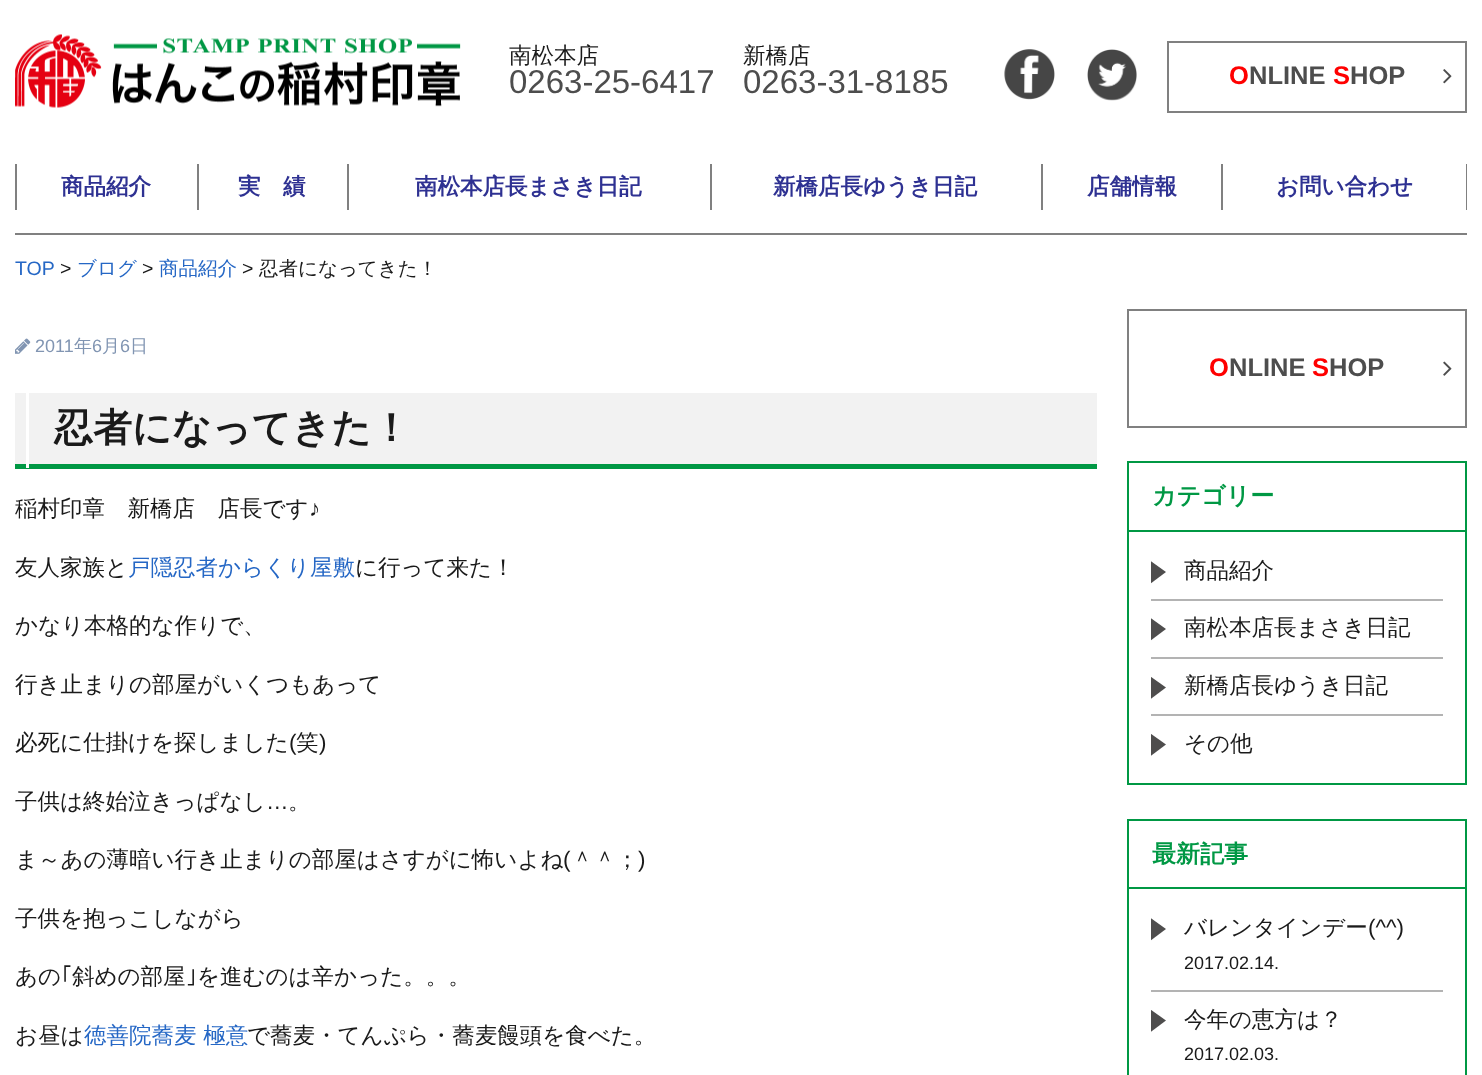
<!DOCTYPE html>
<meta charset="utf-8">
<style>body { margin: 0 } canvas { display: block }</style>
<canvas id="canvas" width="1482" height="1075"></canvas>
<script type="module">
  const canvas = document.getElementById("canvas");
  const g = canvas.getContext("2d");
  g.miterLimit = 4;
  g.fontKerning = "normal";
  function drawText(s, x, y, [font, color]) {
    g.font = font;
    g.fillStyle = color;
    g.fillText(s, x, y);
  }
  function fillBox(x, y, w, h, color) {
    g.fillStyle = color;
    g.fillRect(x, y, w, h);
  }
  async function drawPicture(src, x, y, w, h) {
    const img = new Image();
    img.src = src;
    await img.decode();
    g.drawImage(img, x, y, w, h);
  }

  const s1 = ["500 22.5px WenQuanYi Zen Hei", "#1A1A1A"];
  const s2 = ["33px Liberation Sans", "#4D4D4D"];
  const s3 = ["bold 25.5px Liberation Sans", "#FF0000"];
  const s4 = ["bold 25.5px Liberation Sans", "#4D4D4D"];
  const s5 = ["bold 22.5px WenQuanYi Zen Hei", "#2E3192"];
  const s6 = ["19.5px Liberation Sans", "#2567C5"];
  const s7 = ["19.5px Liberation Sans", "#1A1A1A"];
  const s8 = ["500 19.5px WenQuanYi Zen Hei", "#2567C5"];
  const s9 = ["500 19.5px WenQuanYi Zen Hei", "#1A1A1A"];
  const s10 = ["18px Liberation Sans", "#8195B2"];
  const s11 = ["500 18px WenQuanYi Zen Hei", "#8195B2"];
  const s12 = ["bold 39px WenQuanYi Zen Hei", "#1A1A1A"];
  const s13 = ["22.5px Liberation Sans", "#1A1A1A"];
  const s14 = ["500 22.5px WenQuanYi Zen Hei", "#2567C5"];
  const s15 = ["22.5px IPAPGothic", "#1A1A1A"];
  const s16 = ["bold 24px WenQuanYi Zen Hei", "#009844"];
  const s17 = ["18px Liberation Sans", "#1A1A1A"];

  fillBox(0, 0, 1482, 1075, "#FFFFFF");
  await drawPicture("pic1.png", 15, 34, 446, 74);
  drawText("南松本店", 509, 63, s1);
  drawText("0263-25-6417", 509, 93, s2);
  drawText("新橋店", 743, 63, s1);
  drawText("0263-31-8185", 743, 93, s2);
  await drawPicture("pic2.png", 1004, 49, 51, 51);
  await drawPicture("pic3.png", 1087, 49, 50, 52);
  g.strokeStyle = "#808080";
  g.lineWidth = 2;
  g.strokeRect(1168, 42, 298, 70);
  drawText("O", 1229, 84, s3);
  drawText("NLINE", 1249, 84, s4);
  drawText("S", 1333, 84, s3);
  drawText("HOP", 1350, 84, s4);
  await drawPicture("pic4.png", 1443, 69, 9, 15);
  fillBox(15, 233, 1452, 2, "#808080");
  fillBox(15, 164, 2, 46, "#808080");
  drawText("商品紹介", 61, 194, s5);
  fillBox(197, 164, 2, 46, "#808080");
  drawText("実　績", 238, 194, s5);
  fillBox(347, 164, 2, 46, "#808080");
  drawText("南松本店長まさき日記", 415, 194, s5);
  fillBox(710, 164, 2, 46, "#808080");
  drawText("新橋店長ゆうき日記", 773, 194, s5);
  fillBox(1041, 164, 2, 46, "#808080");
  drawText("店舗情報", 1087, 194, s5);
  fillBox(1466, 164, 1, 46, "#808080");
  fillBox(1221, 164, 2, 46, "#808080");
  drawText("お問い合わせ", 1276, 194, s5);
  drawText("TOP", 15, 275, s6);
  drawText(">", 60, 275, s7);
  drawText("ブログ", 77, 275, s8);
  drawText(">", 142, 275, s7);
  drawText("商品紹介", 159, 275, s8);
  drawText(">", 242, 275, s7);
  drawText("忍者になってきた！", 259, 275, s9);
  await drawPicture("pic5.png", 15, 338, 16, 16);
  drawText("2011", 35, 352, s10);
  drawText("年", 74, 352, s11);
  drawText("6", 92, 352, s10);
  drawText("月", 102, 352, s11);
  drawText("6", 120, 352, s10);
  drawText("日", 130, 352, s11);
  fillBox(15, 393, 1082, 71, "#F2F2F2");
  fillBox(15, 464, 1082, 5, "#009844");
  fillBox(26, 393, 3, 75, "#FFFFFF");
  drawText("忍者になってきた！", 54, 441, s12);
  drawText("稲村印章　新橋店　店長です", 15, 516, s1);
  drawText("♪", 309, 516, s13);
  drawText("友人家族と", 15, 575, s1);
  drawText("戸隠忍者からくり屋敷", 128, 575, s14);
  drawText("に行って来た！", 355, 575, s1);
  drawText("かなり本格的な作りで、", 15, 633, s1);
  drawText("行き止まりの部屋がいくつもあって", 15, 692, s1);
  drawText("必死に仕掛けを探しました", 15, 750, s1);
  drawText("(", 289, 750, s13);
  drawText("笑", 296, 750, s1);
  drawText(")", 319, 750, s13);
  drawText("子供は終始泣きっぱなし", 15, 809, s1);
  drawText("…", 266, 809, s13);
  drawText("。", 288, 809, s1);
  drawText("ま～あの薄暗い行き止まりの部屋はさすがに怖いよね", 15, 867, s1);
  drawText("(", 563, 867, s13);
  drawText("＾＾；", 571, 867, s1);
  drawText(")", 638, 867, s13);
  drawText("子供を抱っこしながら", 15, 926, s1);
  drawText("あの", 15, 984, s1);
  drawText("｢", 61, 984, s15);
  drawText("斜めの部屋", 72, 984, s1);
  drawText("｣", 186, 984, s15);
  drawText("を進むのは辛かった。。。", 197, 984, s1);
  drawText("お昼は", 15, 1043, s1);
  drawText("徳善院蕎麦 極意", 84, 1043, s14);
  drawText("で蕎麦・てんぷら・蕎麦饅頭を食べた。", 247, 1043, s1);
  g.strokeRect(1128, 310, 338, 117);
  drawText("O", 1209, 376, s3);
  drawText("NLINE", 1229, 376, s4);
  drawText("S", 1312, 376, s3);
  drawText("HOP", 1329, 376, s4);
  await drawPicture("pic6.png", 1443, 361, 9, 15);
  g.strokeStyle = "#009844";
  g.strokeRect(1128, 462, 338, 322);
  fillBox(1128, 530, 338, 2, "#009844");
  drawText("カテゴリー", 1152, 504, s16);
  fillBox(1151, 599, 292, 2, "#B3B3B3");
  g.save();
  g.beginPath();
  g.rect(1151, 561, 15, 23);
  g.clip();
  g.fillStyle = "#4E4D4D";
  g.beginPath();
  g.moveTo(1166, 572);
  g.lineTo(1150.5, 583.5);
  g.lineTo(1150.5, 561);
  g.closePath();
  g.fill();
  g.restore();
  drawText("商品紹介", 1184, 578, s1);
  fillBox(1151, 657, 292, 2, "#B3B3B3");
  g.save();
  g.beginPath();
  g.rect(1151, 618, 15, 23);
  g.clip();
  g.fillStyle = "#4E4D4D";
  g.beginPath();
  g.moveTo(1166, 629);
  g.lineTo(1150.5, 640.5);
  g.lineTo(1150.5, 618);
  g.closePath();
  g.fill();
  g.restore();
  drawText("南松本店長まさき日記", 1184, 635, s1);
  fillBox(1151, 714, 292, 2, "#B3B3B3");
  g.save();
  g.beginPath();
  g.rect(1151, 677, 15, 22);
  g.clip();
  g.fillStyle = "#4E4D4D";
  g.beginPath();
  g.moveTo(1166, 687.5);
  g.lineTo(1150.5, 699);
  g.lineTo(1150.5, 676.5);
  g.closePath();
  g.fill();
  g.restore();
  drawText("新橋店長ゆうき日記", 1184, 693, s1);
  g.save();
  g.beginPath();
  g.rect(1151, 734, 15, 22);
  g.clip();
  g.fillStyle = "#4E4D4D";
  g.beginPath();
  g.moveTo(1166, 744.5);
  g.lineTo(1150.5, 756);
  g.lineTo(1150.5, 733.5);
  g.closePath();
  g.fill();
  g.restore();
  drawText("その他", 1184, 751, s1);
  g.strokeRect(1128, 820, 338, 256);
  fillBox(1128, 887, 338, 2, "#009844");
  drawText("最新記事", 1152, 862, s16);
  fillBox(1151, 990, 292, 2, "#B3B3B3");
  g.save();
  g.beginPath();
  g.rect(1151, 918, 15, 23);
  g.clip();
  g.fillStyle = "#4E4D4D";
  g.beginPath();
  g.moveTo(1166, 929);
  g.lineTo(1150.5, 940.5);
  g.lineTo(1150.5, 918);
  g.closePath();
  g.fill();
  g.restore();
  drawText("バレンタインデー", 1184, 935, s1);
  drawText("(^^)", 1368, 935, s13);
  drawText("2017.02.14.", 1184, 969, s17);
  g.save();
  g.beginPath();
  g.rect(1151, 1010, 15, 22);
  g.clip();
  g.fillStyle = "#4E4D4D";
  g.beginPath();
  g.moveTo(1166, 1020.5);
  g.lineTo(1150.5, 1032);
  g.lineTo(1150.5, 1009.5);
  g.closePath();
  g.fill();
  g.restore();
  drawText("今年の恵方は？", 1184, 1027, s1);
  drawText("2017.02.03.", 1184, 1060, s17);
</script>
